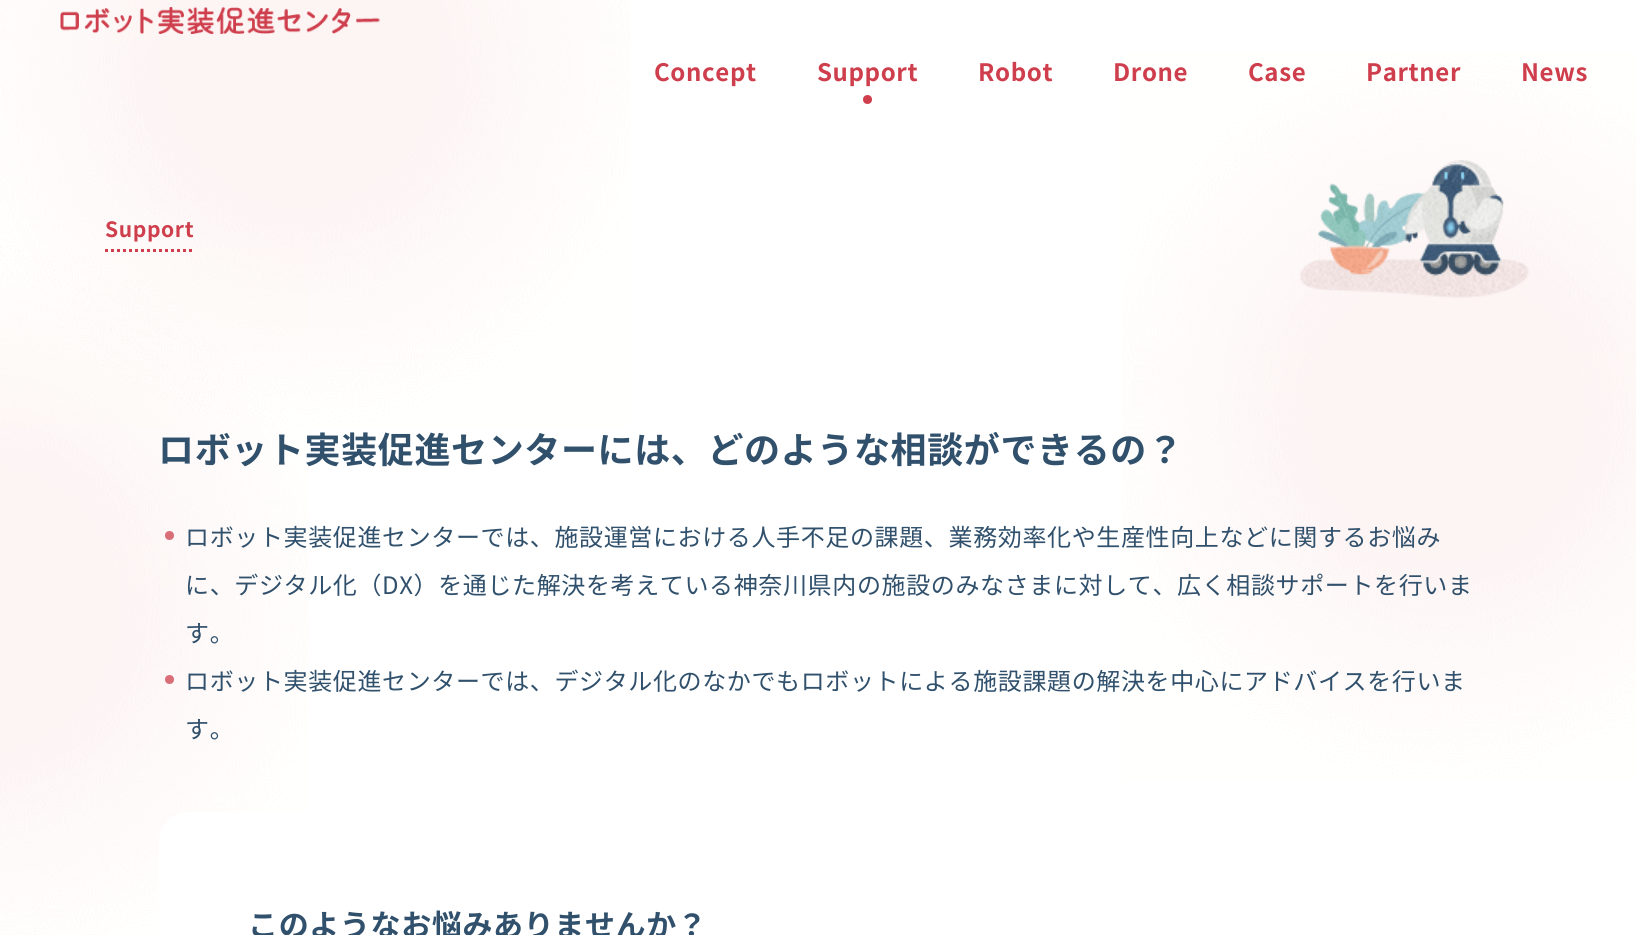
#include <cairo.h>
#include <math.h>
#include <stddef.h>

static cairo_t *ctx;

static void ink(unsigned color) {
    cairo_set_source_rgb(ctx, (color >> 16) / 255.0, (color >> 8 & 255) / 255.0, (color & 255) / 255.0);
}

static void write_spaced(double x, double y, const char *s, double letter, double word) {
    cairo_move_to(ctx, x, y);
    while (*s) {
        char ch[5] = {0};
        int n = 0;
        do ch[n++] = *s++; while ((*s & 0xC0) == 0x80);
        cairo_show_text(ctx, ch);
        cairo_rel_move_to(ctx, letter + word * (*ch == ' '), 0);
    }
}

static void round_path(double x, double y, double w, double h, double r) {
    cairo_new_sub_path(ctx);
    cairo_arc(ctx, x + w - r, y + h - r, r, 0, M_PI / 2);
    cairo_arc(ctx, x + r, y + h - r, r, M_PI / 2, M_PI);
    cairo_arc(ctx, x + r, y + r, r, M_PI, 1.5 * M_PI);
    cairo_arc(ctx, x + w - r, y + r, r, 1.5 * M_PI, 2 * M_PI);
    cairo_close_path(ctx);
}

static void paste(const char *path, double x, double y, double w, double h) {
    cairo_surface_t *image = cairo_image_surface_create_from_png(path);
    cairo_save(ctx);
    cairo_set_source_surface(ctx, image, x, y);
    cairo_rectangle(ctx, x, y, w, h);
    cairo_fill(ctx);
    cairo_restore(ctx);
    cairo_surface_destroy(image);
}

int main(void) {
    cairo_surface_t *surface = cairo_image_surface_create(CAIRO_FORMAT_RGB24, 1636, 935);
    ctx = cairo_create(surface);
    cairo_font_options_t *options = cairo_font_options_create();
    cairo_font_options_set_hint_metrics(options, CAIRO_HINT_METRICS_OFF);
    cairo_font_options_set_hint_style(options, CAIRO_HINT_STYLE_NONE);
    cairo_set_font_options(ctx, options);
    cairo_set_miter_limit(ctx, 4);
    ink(0xffffff);
    cairo_paint(ctx);
    paste("pic1.png", 0, 0, 630, 427);
    paste("pic2.png", 1122, 53, 514, 727);
    paste("pic3.png", 0, 246, 309, 689);
    paste("pic4.png", 60, 7, 320, 27);
    cairo_select_font_face(ctx, "Noto Sans JP", CAIRO_FONT_SLANT_NORMAL, CAIRO_FONT_WEIGHT_BOLD);
    cairo_set_font_size(ctx, 24);
    ink(0xce3e4c);
    write_spaced(654, 81, "Concept", 0.63, 0);
    write_spaced(817, 81, "Support", 0.63, 0);
    cairo_new_path(ctx);
    cairo_arc(ctx, 867.5, 99.5, 4.5, 0, 2 * M_PI);
    cairo_fill(ctx);
    write_spaced(978, 81, "Robot", 0.63, 0);
    write_spaced(1113, 81, "Drone", 0.63, 0);
    write_spaced(1248, 81, "Case", 0.63, 0);
    write_spaced(1366, 81, "Partner", 0.63, 0);
    write_spaced(1521, 81, "News", 0.63, 0);
    cairo_new_path(ctx);
    cairo_move_to(ctx, 105, 250.5);
    cairo_line_to(ctx, 193.5, 250.5);
    cairo_set_line_width(ctx, 3);
    cairo_set_dash(ctx, (double[]){3, 3}, 2, 0);
    cairo_stroke(ctx);
    cairo_set_font_size(ctx, 21);
    write_spaced(105, 237, "Support", 0.63, 0);
    paste("pic5.png", 1300, 160, 229, 138);
    cairo_set_font_size(ctx, 36);
    ink(0x30506c);
    write_spaced(158, 463, "ロボット実装促進センターには、どのような相談ができるの？", 0.63, 0);
    ink(0xda6e78);
    cairo_new_path(ctx);
    cairo_arc(ctx, 169.5, 535.5, 4.5, 0, 2 * M_PI);
    cairo_fill(ctx);
    cairo_select_font_face(ctx, "Noto Sans JP", CAIRO_FONT_SLANT_NORMAL, CAIRO_FONT_WEIGHT_NORMAL);
    cairo_set_font_size(ctx, 24);
    ink(0x30506c);
    write_spaced(185, 546, "ロボット実装促進センターでは、施設運営における人手不足の課題、業務効率化や生産性向上などに関するお悩み", 0.63, 0);
    write_spaced(185, 594, "に、デジタル化（DX）を通じた解決を考えている神奈川県内の施設のみなさまに対して、広く相談サポートを行いま", 0.63, 0);
    write_spaced(185, 642, "す。", 0.63, 0);
    ink(0xda6e78);
    cairo_new_path(ctx);
    cairo_arc(ctx, 169.5, 679.5, 4.5, 0, 2 * M_PI);
    cairo_fill(ctx);
    ink(0x30506c);
    write_spaced(185, 690, "ロボット実装促進センターでは、デジタル化のなかでもロボットによる施設課題の解決を中心にアドバイスを行いま", 0.63, 0);
    write_spaced(185, 738, "す。", 0.63, 0);
    ink(0xffffff);
    round_path(159, 812, 1320, 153, 30);
    cairo_fill(ctx);
    cairo_select_font_face(ctx, "Noto Sans JP", CAIRO_FONT_SLANT_NORMAL, CAIRO_FONT_WEIGHT_BOLD);
    cairo_set_font_size(ctx, 30);
    ink(0x30506c);
    write_spaced(248, 936, "このようなお悩みありませんか？", 0.63, 0);
    cairo_surface_write_to_png(surface, "screenshot.png");
    cairo_font_options_destroy(options);
    cairo_destroy(ctx);
    cairo_surface_destroy(surface);
    return 0;
}
